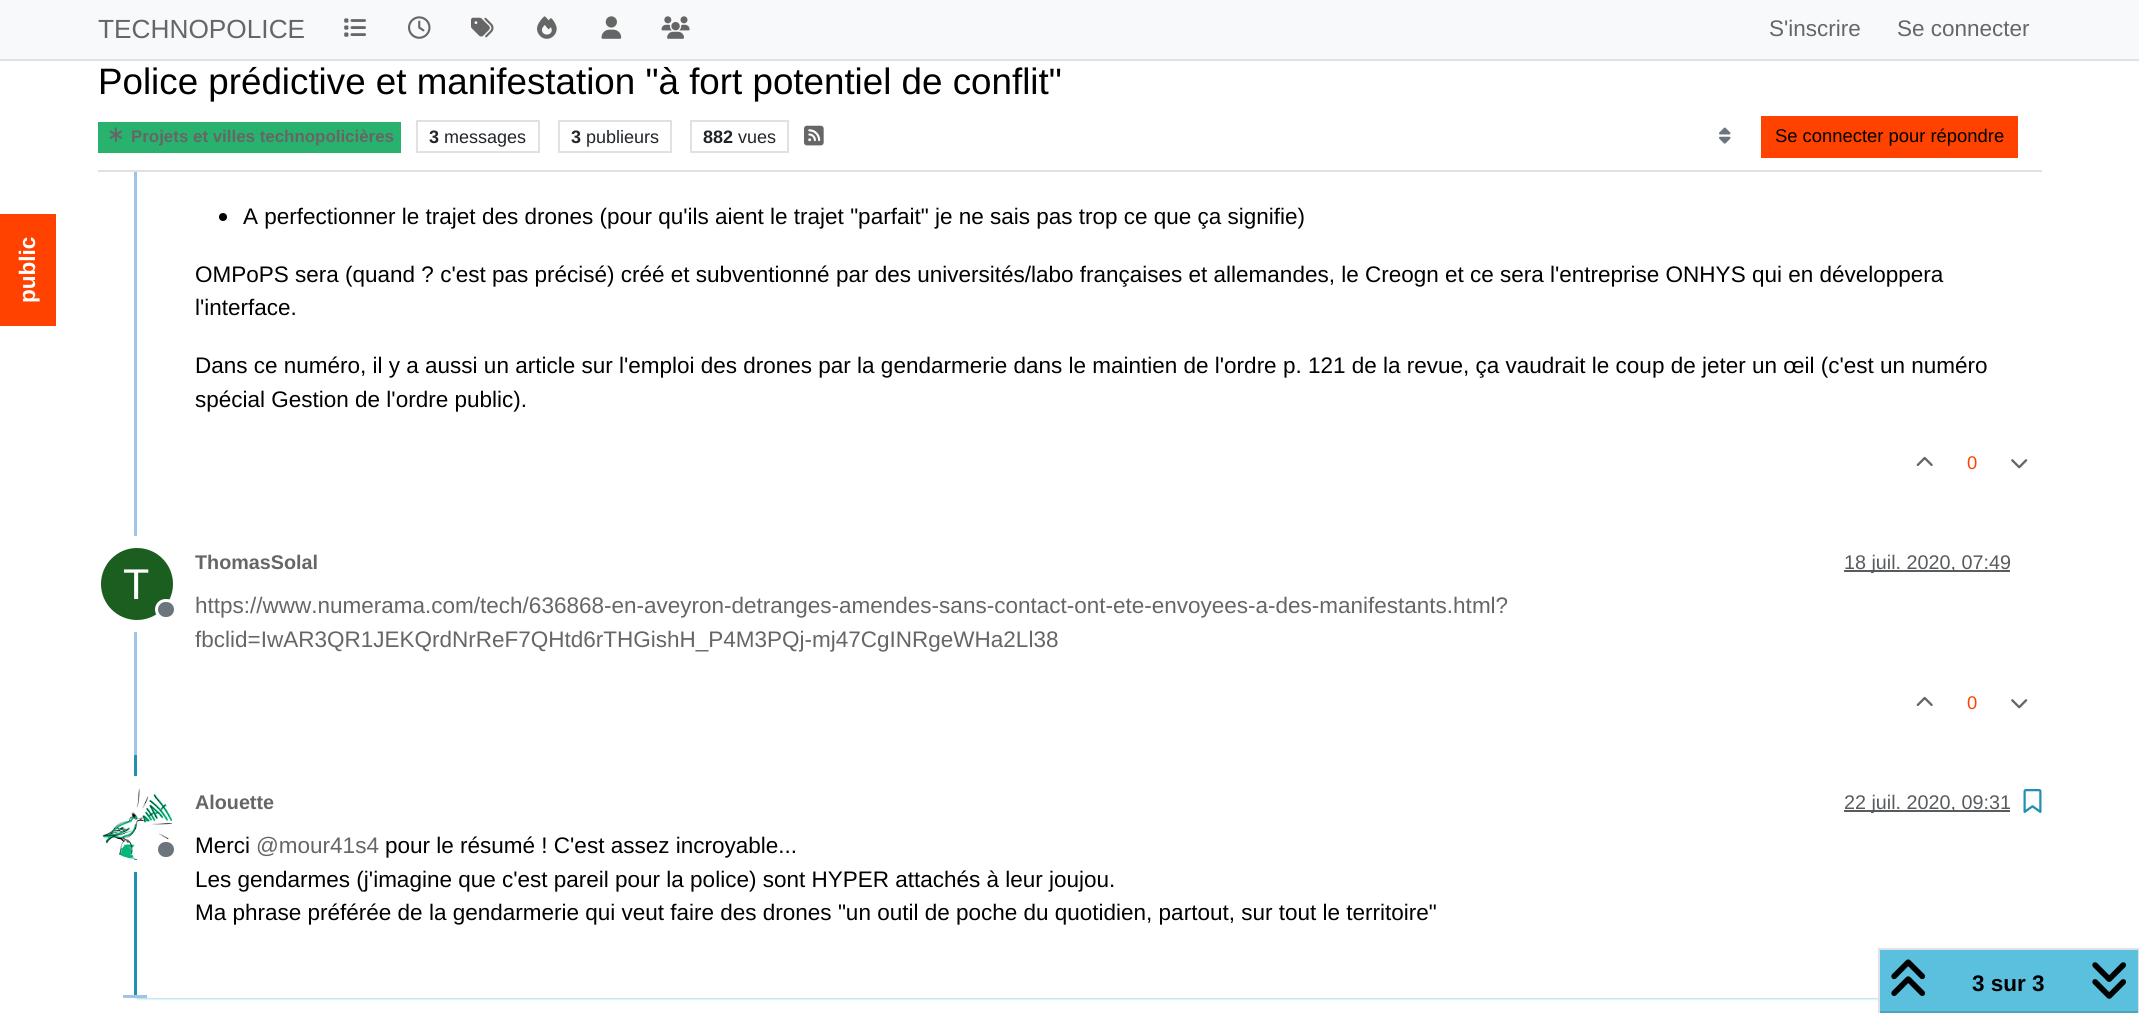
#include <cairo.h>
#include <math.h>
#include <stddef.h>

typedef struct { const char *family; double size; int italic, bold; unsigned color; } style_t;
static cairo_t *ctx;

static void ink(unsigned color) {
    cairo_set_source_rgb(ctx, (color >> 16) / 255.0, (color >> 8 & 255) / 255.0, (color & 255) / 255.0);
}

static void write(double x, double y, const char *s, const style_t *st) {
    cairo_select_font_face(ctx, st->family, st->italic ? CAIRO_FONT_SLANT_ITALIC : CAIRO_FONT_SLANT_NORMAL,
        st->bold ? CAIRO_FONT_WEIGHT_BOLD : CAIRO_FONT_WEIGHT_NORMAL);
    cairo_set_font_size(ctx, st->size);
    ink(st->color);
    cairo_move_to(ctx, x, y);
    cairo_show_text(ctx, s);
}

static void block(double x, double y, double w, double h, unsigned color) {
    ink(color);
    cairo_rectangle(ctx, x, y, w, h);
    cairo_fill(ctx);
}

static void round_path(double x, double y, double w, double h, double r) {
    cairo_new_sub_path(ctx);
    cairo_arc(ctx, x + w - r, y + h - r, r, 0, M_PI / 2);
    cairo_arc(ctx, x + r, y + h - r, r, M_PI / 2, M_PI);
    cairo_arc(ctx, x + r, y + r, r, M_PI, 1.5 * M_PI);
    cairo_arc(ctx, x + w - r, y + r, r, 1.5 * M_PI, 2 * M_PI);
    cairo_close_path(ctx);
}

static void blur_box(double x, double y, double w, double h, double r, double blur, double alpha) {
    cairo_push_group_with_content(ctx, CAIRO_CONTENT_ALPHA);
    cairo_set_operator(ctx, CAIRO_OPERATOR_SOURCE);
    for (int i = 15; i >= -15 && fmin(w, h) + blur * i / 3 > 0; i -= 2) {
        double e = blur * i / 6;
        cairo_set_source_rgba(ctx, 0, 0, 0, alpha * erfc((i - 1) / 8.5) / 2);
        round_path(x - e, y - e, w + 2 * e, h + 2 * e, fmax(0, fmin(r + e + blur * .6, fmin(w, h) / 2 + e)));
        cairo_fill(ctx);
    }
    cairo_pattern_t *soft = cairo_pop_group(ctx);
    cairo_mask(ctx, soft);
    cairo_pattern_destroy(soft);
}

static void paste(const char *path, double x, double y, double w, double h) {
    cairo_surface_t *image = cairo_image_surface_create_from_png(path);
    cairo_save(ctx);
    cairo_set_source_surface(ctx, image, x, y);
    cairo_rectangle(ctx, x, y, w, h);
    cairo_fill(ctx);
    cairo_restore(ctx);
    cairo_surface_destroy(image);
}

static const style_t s1 = {"Liberation Sans", 22.5, 0, 1, 0xffffff};
static const style_t s2 = {"Liberation Sans", 26.25, 0, 0, 0x666666};
static const style_t s3 = {"Liberation Sans", 22.5, 0, 0, 0x666666};
static const style_t s4 = {"Liberation Sans", 36.75, 0, 0, 0x000000};
static const style_t s5 = {"Liberation Sans", 16.9, 0, 1, 0x666666};
static const style_t s6 = {"Liberation Sans", 18, 0, 1, 0x212529};
static const style_t s7 = {"Liberation Sans", 18, 0, 0, 0x212529};
static const style_t s8 = {"Liberation Sans", 18.4, 0, 0, 0x000000};
static const style_t s9 = {"Liberation Sans", 22.5, 0, 0, 0x000000};
static const style_t s10 = {"Liberation Sans", 18.4, 0, 0, 0xff4200};
static const style_t s11 = {"Liberation Sans", 19.75, 0, 1, 0x666666};
static const style_t s12 = {"Liberation Sans", 19.75, 0, 0, 0x585b5e};
static const style_t s13 = {"Liberation Sans", 43, 0, 0, 0xffffff};
static const style_t s14 = {"Liberation Sans", 22.5, 0, 1, 0x000000};

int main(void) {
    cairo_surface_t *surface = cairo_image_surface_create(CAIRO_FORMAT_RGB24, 2139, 1013);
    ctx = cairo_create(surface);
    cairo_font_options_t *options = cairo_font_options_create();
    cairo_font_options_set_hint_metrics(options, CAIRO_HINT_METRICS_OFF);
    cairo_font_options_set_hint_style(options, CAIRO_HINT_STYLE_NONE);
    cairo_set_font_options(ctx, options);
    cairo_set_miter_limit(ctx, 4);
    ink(0xffffff);
    cairo_paint(ctx);
    block(0, 214, 56, 112, 0xff4200);
    cairo_save(ctx);
    cairo_translate(ctx, 35, 303);
    cairo_rotate(ctx, -90 * M_PI / 180);
    write(0, 0, "public", &s1);
    cairo_restore(ctx);
    block(0, 0, 2139, 59, 0xf8f9fa);
    block(0, 59, 2139, 2, 0xdee2e6);
    write(98, 38, "TECHNOPOLICE", &s2);
    paste("pic1.png", 344, 18, 22, 19);
    paste("pic2.png", 408, 16, 23, 23);
    paste("pic3.png", 471, 17, 23, 21);
    paste("pic4.png", 537, 16, 20, 23);
    paste("pic5.png", 601, 16, 21, 23);
    paste("pic6.png", 661, 16, 29, 23);
    write(1769, 36, "S'inscrire", &s3);
    write(1897, 36, "Se connecter", &s3);
    block(98, 170, 1944, 2, 0xdee2e6);
    write(98, 94, "Police prédictive et manifestation \"à fort potentiel de conflit\"", &s4);
    block(98, 122, 303, 31, 0x29b26e);
    paste("pic7.png", 109, 127, 14, 15);
    write(131, 142, "Projets et villes technopolicières", &s5);
    cairo_rectangle(ctx, 417, 121, 122, 31);
    ink(0xdee2e6);
    cairo_stroke(ctx);
    write(429, 143, "3", &s6);
    write(444, 143, "messages", &s7);
    cairo_rectangle(ctx, 559, 121, 112, 31);
    ink(0xdee2e6);
    cairo_stroke(ctx);
    write(571, 143, "3", &s6);
    write(586, 143, "publieurs", &s7);
    cairo_rectangle(ctx, 691, 121, 97, 31);
    ink(0xdee2e6);
    cairo_stroke(ctx);
    write(703, 143, "882", &s6);
    write(738, 143, "vues", &s7);
    paste("pic8.png", 804, 125, 20, 21);
    paste("pic9.png", 1719, 127, 12, 17);
    block(1761, 116, 257, 42, 0xff4200);
    write(1775, 142, "Se connecter pour répondre", &s8);
    block(134, 172, 3, 583, 0xa0c4e4);
    ink(0x000000);
    cairo_new_path(ctx);
    cairo_arc(ctx, 223, 217, 4, 0, 2 * M_PI);
    cairo_fill(ctx);
    write(243, 224, "A perfectionner le trajet des drones (pour qu'ils aient le trajet \"parfait\" je ne sais pas trop ce que ça signifie)", &s9);
    write(195, 282, "OMPoPS sera (quand ? c'est pas précisé) créé et subventionné par des universités/labo françaises et allemandes, le Creogn et ce sera l'entreprise ONHYS qui en développera", &s9);
    write(195, 315, "l'interface.", &s9);
    write(195, 373, "Dans ce numéro, il y a aussi un article sur l'emploi des drones par la gendarmerie dans le maintien de l'ordre p. 121 de la revue, ça vaudrait le coup de jeter un œil (c'est un numéro", &s9);
    write(195, 407, "spécial Gestion de l'ordre public).", &s9);
    paste("pic10.png", 1916, 456, 17, 10);
    write(1967, 469, "0", &s10);
    paste("pic11.png", 2011, 459, 17, 10);
    write(195, 569, "ThomasSolal", &s11);
    block(1844, 570, 166, 2, 0x595c5f);
    write(1844, 569, "18 juil. 2020, 07:49", &s12);
    cairo_new_path(ctx);
    cairo_arc(ctx, 137, 584, 42, 0, 2 * M_PI);
    ink(0xffffff);
    cairo_set_line_width(ctx, 12);
    cairo_stroke(ctx);
    ink(0x1b5e20);
    cairo_arc(ctx, 137, 584, 36, 0, 2 * M_PI);
    cairo_fill(ctx);
    write(123, 599, "T", &s13);
    ink(0x6c757d);
    round_path(156.5, 600.5, 19, 18, 9);
    cairo_fill_preserve(ctx);
    ink(0xffffff);
    cairo_set_line_width(ctx, 3);
    cairo_stroke(ctx);
    write(195, 613, "https://www.numerama.com/tech/636868-en-aveyron-detranges-amendes-sans-contact-ont-ete-envoyees-a-des-manifestants.html?", &s3);
    write(195, 647, "fbclid=IwAR3QR1JEKQrdNrReF7QHtd6rTHGishH_P4M3PQj-mj47CgINRgeWHa2Ll38", &s3);
    paste("pic10.png", 1916, 696, 17, 10);
    write(1967, 709, "0", &s10);
    paste("pic11.png", 2011, 699, 17, 10);
    cairo_save(ctx);
    cairo_set_fill_rule(ctx, CAIRO_FILL_RULE_EVEN_ODD);
    cairo_new_path(ctx);
    cairo_move_to(ctx, 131, 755);
    cairo_line_to(ctx, 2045, 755);
    cairo_line_to(ctx, 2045, 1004);
    cairo_line_to(ctx, 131, 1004);
    cairo_close_path(ctx);
    cairo_move_to(ctx, 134, 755);
    cairo_line_to(ctx, 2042, 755);
    cairo_line_to(ctx, 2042, 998);
    cairo_line_to(ctx, 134, 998);
    cairo_close_path(ctx);
    cairo_clip(ctx);
    ink(0x5bc0de);
    blur_box(137, 761, 1902, 237, 0, 1.5, 1);
    cairo_restore(ctx);
    block(134, 755, 3, 243, 0x2390b0);
    cairo_arc(ctx, 137, 824, 42, 0, 2 * M_PI);
    ink(0xffffff);
    cairo_set_line_width(ctx, 12);
    cairo_stroke(ctx);
    paste("pic12.png", 102, 788, 71, 71);
    ink(0x6c757d);
    round_path(156.5, 840.5, 19, 18, 9);
    cairo_fill_preserve(ctx);
    ink(0xffffff);
    cairo_set_line_width(ctx, 3);
    cairo_stroke(ctx);
    write(195, 809, "Alouette", &s11);
    block(1844, 810, 166, 2, 0x595c5f);
    write(1844, 809, "22 juil. 2020, 09:31", &s12);
    paste("pic13.png", 2023, 789, 19, 24);
    write(195, 853, "Merci", &s9);
    write(256, 853, "@mour41s4", &s3);
    write(385, 853, "pour le résumé ! C'est assez incroyable...", &s9);
    write(195, 887, "Les gendarmes (j'imagine que c'est pareil pour la police) sont HYPER attachés à leur joujou.", &s9);
    write(195, 920, "Ma phrase préférée de la gendarmerie qui veut faire des drones \"un outil de poche du quotidien, partout, sur tout le territoire\"", &s9);
    block(123, 995, 24, 3, 0xa0c4e4);
    cairo_rectangle(ctx, 1879, 949, 259, 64);
    ink(0xdee2e6);
    cairo_set_line_width(ctx, 2);
    cairo_stroke(ctx);
    block(1880, 950, 258, 61, 0x5bc0de);
    block(1880, 1011, 258, 2, 0x4da3bd);
    paste("pic14.png", 1891, 959, 34, 37);
    write(1972, 991, "3 sur 3", &s14);
    paste("pic15.png", 2092, 962, 34, 37);
    cairo_surface_write_to_png(surface, "screenshot.png");
    cairo_font_options_destroy(options);
    cairo_destroy(ctx);
    cairo_surface_destroy(surface);
    return 0;
}
